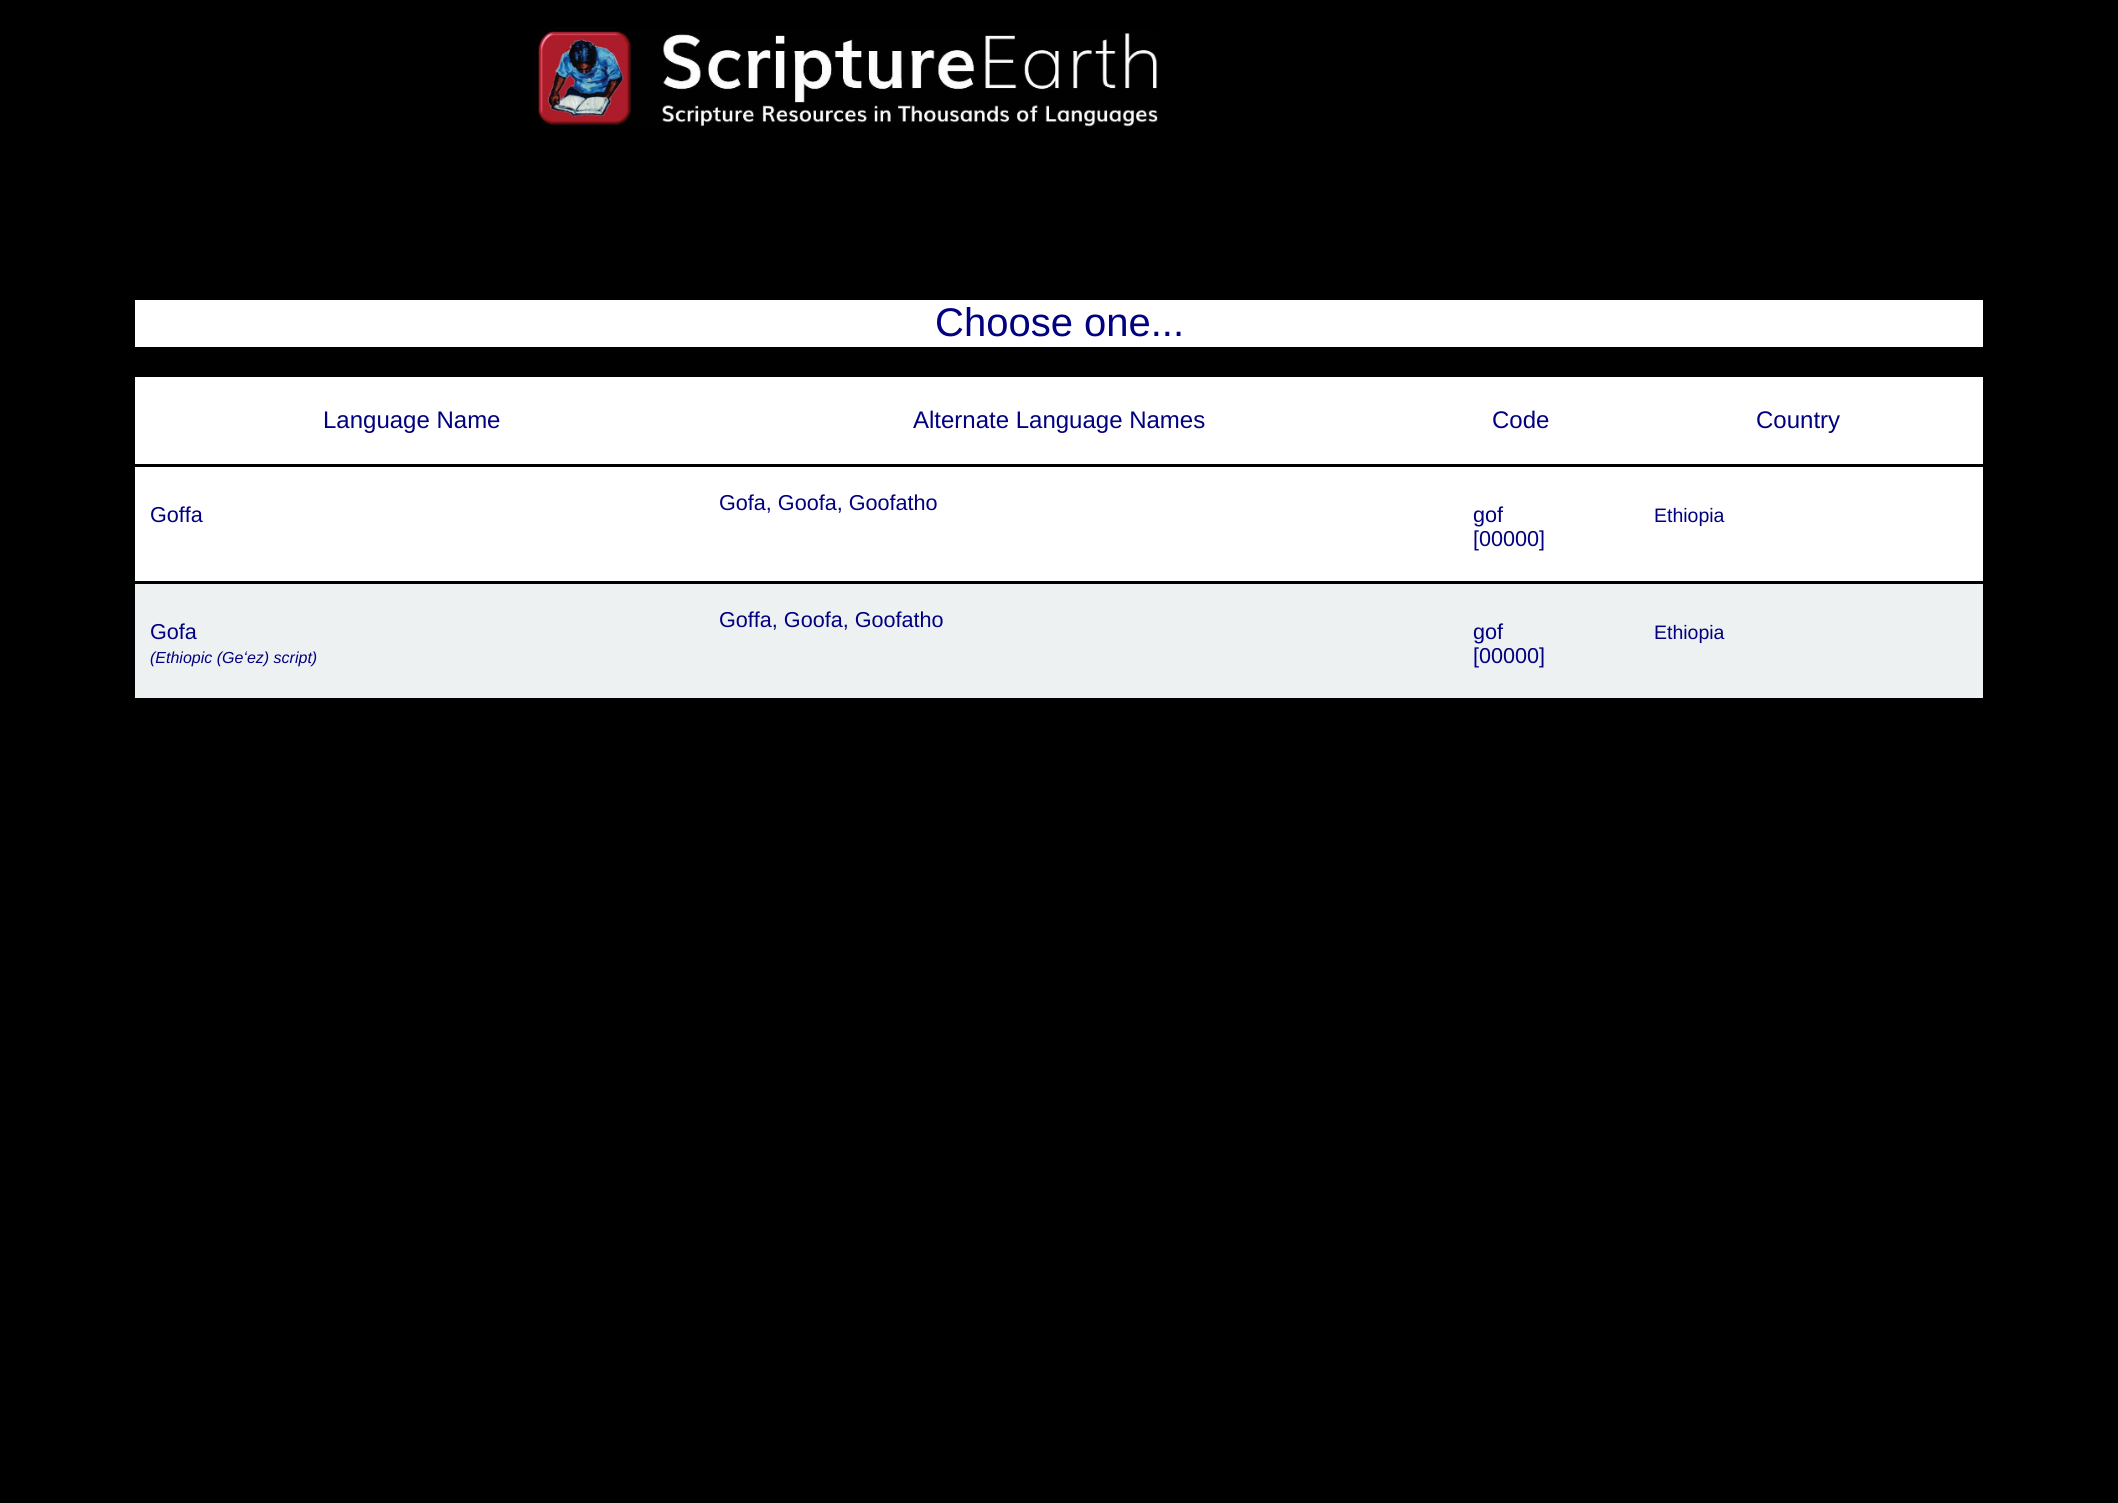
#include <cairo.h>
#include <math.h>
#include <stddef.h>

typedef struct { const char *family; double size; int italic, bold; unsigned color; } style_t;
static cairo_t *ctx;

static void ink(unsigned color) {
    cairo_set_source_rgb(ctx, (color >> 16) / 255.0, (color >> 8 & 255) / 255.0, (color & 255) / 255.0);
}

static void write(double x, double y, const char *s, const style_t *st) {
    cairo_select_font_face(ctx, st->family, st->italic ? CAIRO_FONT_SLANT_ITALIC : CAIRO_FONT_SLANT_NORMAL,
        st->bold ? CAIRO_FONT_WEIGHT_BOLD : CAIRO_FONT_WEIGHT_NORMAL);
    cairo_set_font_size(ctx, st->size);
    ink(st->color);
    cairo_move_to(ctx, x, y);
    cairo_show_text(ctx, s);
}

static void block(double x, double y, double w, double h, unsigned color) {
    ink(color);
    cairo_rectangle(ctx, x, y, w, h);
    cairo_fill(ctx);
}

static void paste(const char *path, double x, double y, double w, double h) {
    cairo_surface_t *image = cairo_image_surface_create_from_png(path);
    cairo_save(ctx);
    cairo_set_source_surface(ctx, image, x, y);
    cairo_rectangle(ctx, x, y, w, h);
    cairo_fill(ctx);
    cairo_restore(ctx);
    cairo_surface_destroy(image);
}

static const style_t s1 = {"Liberation Sans", 40, 0, 0, 0x000080};
static const style_t s2 = {"Liberation Sans", 24, 0, 0, 0x000080};
static const style_t s3 = {"Liberation Sans", 21.6, 0, 0, 0x000080};
static const style_t s4 = {"Liberation Sans", 19.5, 0, 0, 0x000080};
static const style_t s5 = {"Liberation Sans", 16, 1, 0, 0x000080};

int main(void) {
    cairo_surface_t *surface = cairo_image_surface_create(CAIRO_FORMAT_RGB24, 2118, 1503);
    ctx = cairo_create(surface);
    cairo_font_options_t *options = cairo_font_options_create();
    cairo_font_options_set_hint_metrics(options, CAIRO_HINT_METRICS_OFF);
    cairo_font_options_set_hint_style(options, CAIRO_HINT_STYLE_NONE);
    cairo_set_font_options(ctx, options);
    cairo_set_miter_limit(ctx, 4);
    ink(0x000000);
    cairo_paint(ctx);
    paste("pic1.png", 535, 27, 624, 101);
    block(135, 300, 1848, 47, 0xffffff);
    write(935, 336, "Choose one...", &s1);
    block(135, 377, 1848, 87, 0xffffff);
    write(323, 428, "Language Name", &s2);
    write(913, 428, "Alternate Language Names", &s2);
    write(1492, 428, "Code", &s2);
    write(1756, 428, "Country", &s2);
    block(135, 467, 1848, 114, 0xffffff);
    write(150, 522, "Goffa", &s3);
    write(719, 510, "Gofa, Goofa, Goofatho", &s3);
    write(1473, 522, "gof", &s3);
    write(1473, 546, "[00000]", &s3);
    write(1654, 522, "Ethiopia", &s4);
    block(135, 584, 1848, 114, 0xeef1f2);
    write(719, 627, "Goffa, Goofa, Goofatho", &s3);
    write(150, 639, "Gofa", &s3);
    write(150, 663, "(Ethiopic (Geʻez) script)", &s5);
    write(1473, 639, "gof", &s3);
    write(1473, 663, "[00000]", &s3);
    write(1654, 639, "Ethiopia", &s4);
    cairo_surface_write_to_png(surface, "screenshot.png");
    cairo_font_options_destroy(options);
    cairo_destroy(ctx);
    cairo_surface_destroy(surface);
    return 0;
}
